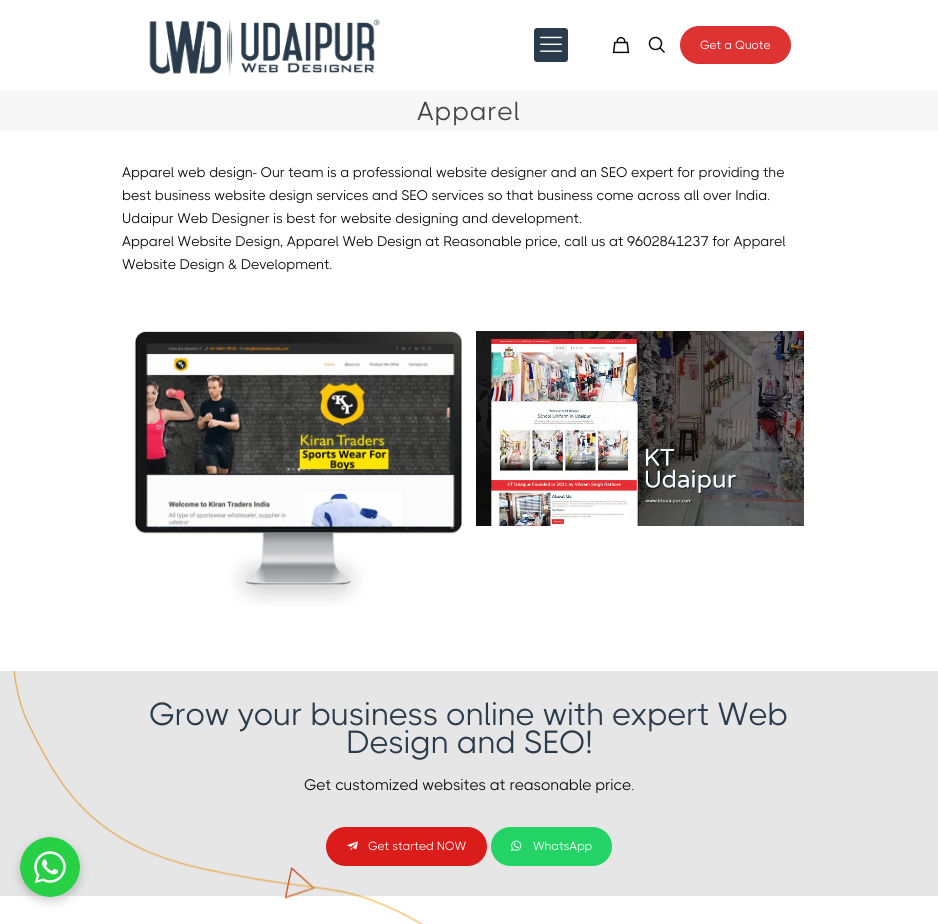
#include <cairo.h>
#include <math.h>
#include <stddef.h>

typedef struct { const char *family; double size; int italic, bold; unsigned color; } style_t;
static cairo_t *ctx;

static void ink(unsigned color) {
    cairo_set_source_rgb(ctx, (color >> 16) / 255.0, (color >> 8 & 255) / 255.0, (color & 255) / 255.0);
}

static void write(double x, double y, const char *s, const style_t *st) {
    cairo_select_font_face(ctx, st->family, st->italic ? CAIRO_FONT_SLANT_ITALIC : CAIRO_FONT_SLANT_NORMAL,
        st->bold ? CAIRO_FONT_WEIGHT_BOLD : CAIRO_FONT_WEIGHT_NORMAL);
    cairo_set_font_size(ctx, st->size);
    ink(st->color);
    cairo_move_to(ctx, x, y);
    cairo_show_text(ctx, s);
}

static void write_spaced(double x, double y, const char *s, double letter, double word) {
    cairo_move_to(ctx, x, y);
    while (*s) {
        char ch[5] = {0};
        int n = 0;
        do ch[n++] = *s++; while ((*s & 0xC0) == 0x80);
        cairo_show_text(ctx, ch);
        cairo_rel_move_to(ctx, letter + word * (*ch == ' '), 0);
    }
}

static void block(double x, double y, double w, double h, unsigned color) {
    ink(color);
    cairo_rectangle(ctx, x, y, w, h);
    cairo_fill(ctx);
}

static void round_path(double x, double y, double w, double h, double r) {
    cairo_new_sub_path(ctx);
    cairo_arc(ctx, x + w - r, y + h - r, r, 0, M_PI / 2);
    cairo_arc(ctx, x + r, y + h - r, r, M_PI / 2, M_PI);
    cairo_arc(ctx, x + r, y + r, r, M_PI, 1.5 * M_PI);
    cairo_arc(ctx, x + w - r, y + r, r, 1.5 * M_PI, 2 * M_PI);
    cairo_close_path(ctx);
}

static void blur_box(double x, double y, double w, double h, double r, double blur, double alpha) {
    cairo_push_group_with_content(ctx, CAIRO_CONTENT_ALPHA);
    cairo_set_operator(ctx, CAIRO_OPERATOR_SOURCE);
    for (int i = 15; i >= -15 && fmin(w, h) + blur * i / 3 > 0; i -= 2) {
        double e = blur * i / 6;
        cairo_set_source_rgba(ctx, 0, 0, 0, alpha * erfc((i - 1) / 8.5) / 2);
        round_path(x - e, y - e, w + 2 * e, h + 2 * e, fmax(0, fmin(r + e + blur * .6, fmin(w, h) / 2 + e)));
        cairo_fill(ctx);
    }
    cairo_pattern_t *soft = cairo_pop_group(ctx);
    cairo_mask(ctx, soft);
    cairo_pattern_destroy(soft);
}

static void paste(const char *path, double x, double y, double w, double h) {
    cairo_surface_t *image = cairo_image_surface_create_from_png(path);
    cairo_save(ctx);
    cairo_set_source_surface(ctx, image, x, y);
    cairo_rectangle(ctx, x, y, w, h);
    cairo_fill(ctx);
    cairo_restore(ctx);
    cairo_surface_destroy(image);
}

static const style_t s1 = {"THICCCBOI", 12, 0, 0, 0xffffff};
static const style_t s2 = {"THICCCBOI", 14, 0, 0, 0x0a0a0a};
static const style_t s3 = {"THICCCBOI", 32, 0, 0, 0x2a3b4c};
static const style_t s4 = {"THICCCBOI", 15.4, 0, 0, 0x0a0a0a};

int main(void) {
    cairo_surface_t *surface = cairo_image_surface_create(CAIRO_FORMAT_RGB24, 938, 924);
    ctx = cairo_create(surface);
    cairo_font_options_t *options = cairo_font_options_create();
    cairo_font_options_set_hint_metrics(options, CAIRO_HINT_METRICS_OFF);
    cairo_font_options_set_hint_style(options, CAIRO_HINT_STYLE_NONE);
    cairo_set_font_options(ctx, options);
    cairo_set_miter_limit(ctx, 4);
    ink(0xffffff);
    cairo_paint(ctx);
    paste("pic1.png", 149, 19, 231, 56);
    ink(0x2a3b4c);
    round_path(534, 28, 34, 34, 3);
    cairo_fill(ctx);
    paste("pic2.png", 540, 36, 22, 16);
    paste("pic3.png", 612, 36, 18, 18);
    cairo_arc(ctx, 655.5, 43.5, 6, 0, 2 * M_PI);
    ink(0x0a0a0a);
    cairo_set_line_width(ctx, 1.5);
    cairo_stroke(ctx);
    cairo_new_path(ctx);
    cairo_move_to(ctx, 659.5, 47.5);
    cairo_line_to(ctx, 664.5, 52.5);
    cairo_stroke(ctx);
    ink(0xdd3333);
    round_path(680, 26, 111, 38, 19);
    cairo_fill(ctx);
    write(700, 49, "Get a Quote", &s1);
    block(0, 91, 938, 40, 0xf7f7f7);
    cairo_set_font_size(ctx, 26);
    ink(0x444444);
    write_spaced(417, 120, "Apparel", 1, 0);
    write(122, 177, "Apparel web design- Our team is a professional website designer and an SEO expert for providing the", &s2);
    write(122, 200, "best business website design services and SEO services so that business come across all over India.", &s2);
    write(122, 223, "Udaipur Web Designer is best for website designing and development.", &s2);
    write(122, 246, "Apparel Website Design, Apparel Web Design at Reasonable price, call us at 9602841237 for Apparel", &s2);
    write(122, 269, "Website Design & Development.", &s2);
    paste("pic4.png", 135, 331, 327, 275);
    paste("pic5.png", 476, 331, 328, 195);
    paste("pic6.png", 13, 671, 411, 253);
    cairo_set_source_rgba(ctx, 0, 0, 0, 0.1);
    cairo_rectangle(ctx, 0, 671, 938, 225);
    cairo_fill(ctx);
    write(149, 725, "Grow your business online with expert Web", &s3);
    write(346, 753, "Design and SEO!", &s3);
    write(304, 790, "Get customized websites at reasonable price.", &s4);
    ink(0xda1c1b);
    round_path(326, 827, 161, 39, 19.5);
    cairo_fill(ctx);
    paste("pic7.png", 347, 841, 11, 10);
    write(368, 850, "Get started NOW", &s1);
    ink(0x23d366);
    round_path(491, 827, 121, 39, 19.5);
    cairo_fill(ctx);
    paste("pic8.png", 511, 840, 11, 11);
    write(533, 850, "WhatsApp", &s1);
    ink(0x000000);
    blur_box(20, 841, 60, 60, 30, 5, 0.2);
    paste("pic9.png", 20, 837, 60, 60);
    cairo_surface_write_to_png(surface, "screenshot.png");
    cairo_font_options_destroy(options);
    cairo_destroy(ctx);
    cairo_surface_destroy(surface);
    return 0;
}
